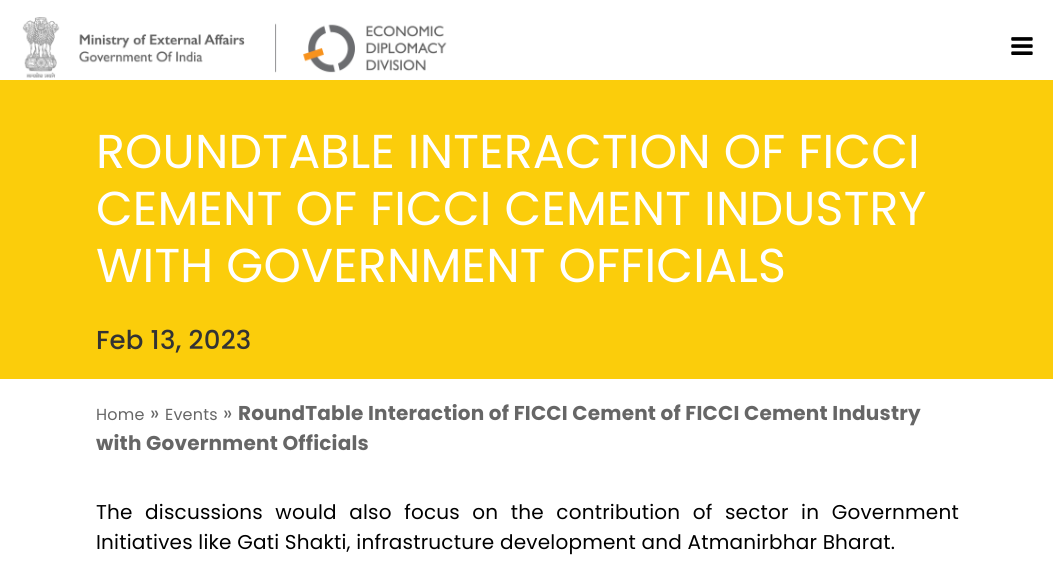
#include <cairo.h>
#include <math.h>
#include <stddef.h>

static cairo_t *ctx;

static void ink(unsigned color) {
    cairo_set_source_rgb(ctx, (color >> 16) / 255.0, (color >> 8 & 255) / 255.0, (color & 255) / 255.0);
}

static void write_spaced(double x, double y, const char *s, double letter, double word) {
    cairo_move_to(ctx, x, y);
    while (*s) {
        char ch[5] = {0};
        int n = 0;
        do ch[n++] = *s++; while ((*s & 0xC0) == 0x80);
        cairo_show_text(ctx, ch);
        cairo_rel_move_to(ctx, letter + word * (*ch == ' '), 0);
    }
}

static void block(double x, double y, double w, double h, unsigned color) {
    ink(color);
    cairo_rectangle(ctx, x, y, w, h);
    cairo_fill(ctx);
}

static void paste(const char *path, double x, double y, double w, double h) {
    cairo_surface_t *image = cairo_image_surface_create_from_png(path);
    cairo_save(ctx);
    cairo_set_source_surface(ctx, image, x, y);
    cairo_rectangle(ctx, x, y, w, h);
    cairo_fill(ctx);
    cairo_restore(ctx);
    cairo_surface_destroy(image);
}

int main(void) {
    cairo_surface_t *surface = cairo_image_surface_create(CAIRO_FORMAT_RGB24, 1053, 588);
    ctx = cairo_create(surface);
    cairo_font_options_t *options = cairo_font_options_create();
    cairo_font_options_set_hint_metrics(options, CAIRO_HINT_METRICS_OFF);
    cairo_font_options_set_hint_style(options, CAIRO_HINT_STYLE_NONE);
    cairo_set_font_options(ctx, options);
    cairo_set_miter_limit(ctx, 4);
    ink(0xffffff);
    cairo_paint(ctx);
    paste("pic1.png", 22, 17, 425, 61);
    paste("pic2.png", 1011, 37, 22, 18);
    block(0, 80, 1053, 299, 0xfbcd0b);
    cairo_select_font_face(ctx, "Poppins", CAIRO_FONT_SLANT_NORMAL, CAIRO_FONT_WEIGHT_NORMAL);
    cairo_set_font_size(ctx, 47.5);
    ink(0xffffff);
    write_spaced(96, 168, "ROUNDTABLE INTERACTION OF FICCI", 0.2, 0);
    write_spaced(96, 225, "CEMENT OF FICCI CEMENT INDUSTRY", 0.2, 0);
    write_spaced(96, 282, "WITH GOVERNMENT OFFICIALS", 0.2, 0);
    cairo_select_font_face(ctx, "Poppins Medium", CAIRO_FONT_SLANT_NORMAL, CAIRO_FONT_WEIGHT_NORMAL);
    cairo_set_font_size(ctx, 26);
    ink(0x333333);
    write_spaced(96, 349, "Feb 13, 2023", 0.2, 0);
    cairo_select_font_face(ctx, "Poppins", CAIRO_FONT_SLANT_NORMAL, CAIRO_FONT_WEIGHT_NORMAL);
    cairo_set_font_size(ctx, 16);
    ink(0x666666);
    write_spaced(96, 420, "Home", 0.2, 0);
    cairo_set_font_size(ctx, 20);
    write_spaced(150, 420, "»", 0.2, 0);
    cairo_set_font_size(ctx, 16);
    write_spaced(165, 420, "Events", 0.2, 0);
    cairo_set_font_size(ctx, 20);
    write_spaced(223, 420, "»", 0.2, 0);
    cairo_select_font_face(ctx, "Poppins", CAIRO_FONT_SLANT_NORMAL, CAIRO_FONT_WEIGHT_BOLD);
    write_spaced(238, 420, "RoundTable Interaction of FICCI Cement of FICCI Cement Industry", 0.2, 0);
    write_spaced(96, 450, "with Government Officials", 0.2, 0);
    cairo_select_font_face(ctx, "Poppins", CAIRO_FONT_SLANT_NORMAL, CAIRO_FONT_WEIGHT_NORMAL);
    ink(0x000000);
    write_spaced(96, 519, "The discussions would also focus on the contribution of sector in Government", 0.2, 6.9);
    write_spaced(96, 549, "Initiatives like Gati Shakti, infrastructure development and Atmanirbhar Bharat.", 0.2, 0);
    cairo_surface_write_to_png(surface, "screenshot.png");
    cairo_font_options_destroy(options);
    cairo_destroy(ctx);
    cairo_surface_destroy(surface);
    return 0;
}
